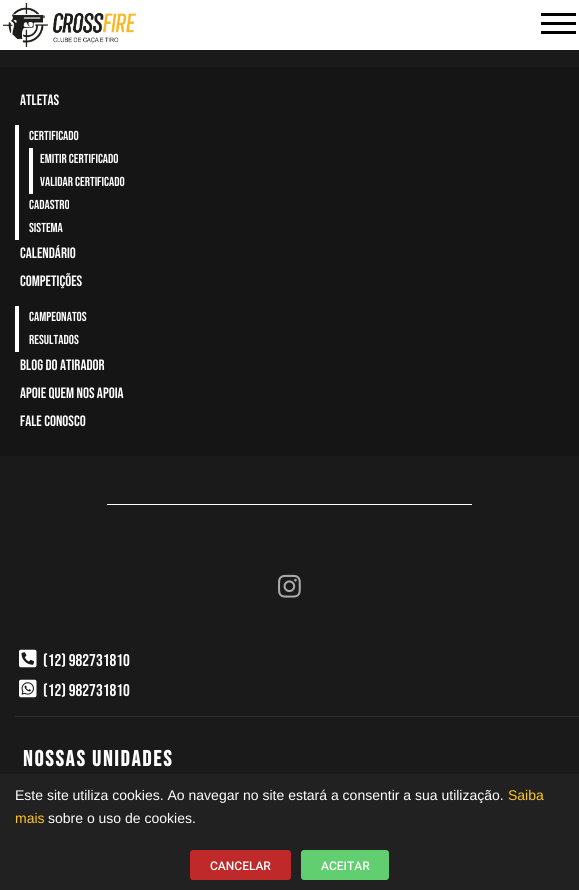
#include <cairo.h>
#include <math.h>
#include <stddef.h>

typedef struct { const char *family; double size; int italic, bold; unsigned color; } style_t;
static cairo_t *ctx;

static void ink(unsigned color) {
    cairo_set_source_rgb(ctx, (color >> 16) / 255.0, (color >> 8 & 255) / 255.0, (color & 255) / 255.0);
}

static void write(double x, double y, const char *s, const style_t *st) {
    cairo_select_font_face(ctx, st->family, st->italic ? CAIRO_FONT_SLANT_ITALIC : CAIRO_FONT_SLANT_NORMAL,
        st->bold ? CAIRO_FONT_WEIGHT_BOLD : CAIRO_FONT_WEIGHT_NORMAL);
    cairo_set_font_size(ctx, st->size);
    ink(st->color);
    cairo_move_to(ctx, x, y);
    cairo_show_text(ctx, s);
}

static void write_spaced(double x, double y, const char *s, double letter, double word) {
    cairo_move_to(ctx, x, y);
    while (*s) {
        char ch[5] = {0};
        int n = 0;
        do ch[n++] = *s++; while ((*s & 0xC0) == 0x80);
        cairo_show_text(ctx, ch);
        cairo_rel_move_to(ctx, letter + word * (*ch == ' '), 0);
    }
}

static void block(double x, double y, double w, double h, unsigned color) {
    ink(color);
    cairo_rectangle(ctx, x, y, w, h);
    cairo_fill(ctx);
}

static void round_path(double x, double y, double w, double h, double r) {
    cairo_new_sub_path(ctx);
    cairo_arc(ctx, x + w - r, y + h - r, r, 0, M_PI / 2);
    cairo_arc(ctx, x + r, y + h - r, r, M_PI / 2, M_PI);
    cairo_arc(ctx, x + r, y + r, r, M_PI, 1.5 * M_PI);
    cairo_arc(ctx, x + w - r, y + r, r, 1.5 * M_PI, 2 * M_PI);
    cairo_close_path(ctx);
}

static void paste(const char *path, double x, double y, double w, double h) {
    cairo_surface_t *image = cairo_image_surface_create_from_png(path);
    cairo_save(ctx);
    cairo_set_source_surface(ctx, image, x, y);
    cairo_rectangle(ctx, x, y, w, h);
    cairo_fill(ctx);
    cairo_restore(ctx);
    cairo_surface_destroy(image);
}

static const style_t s1 = {"Bebas Neue", 15, 0, 0, 0xffffff};
static const style_t s2 = {"Bebas Neue", 13, 0, 0, 0xffffff};
static const style_t s3 = {"Bebas Neue", 17, 0, 0, 0xffffff};
static const style_t s4 = {"Liberation Sans", 14, 0, 0, 0xffffff};
static const style_t s5 = {"Liberation Sans", 14, 0, 0, 0xfec726};
static const style_t s6 = {"Roboto Medium", 12, 0, 0, 0xffffff};

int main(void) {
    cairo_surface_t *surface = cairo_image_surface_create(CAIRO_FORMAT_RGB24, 579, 890);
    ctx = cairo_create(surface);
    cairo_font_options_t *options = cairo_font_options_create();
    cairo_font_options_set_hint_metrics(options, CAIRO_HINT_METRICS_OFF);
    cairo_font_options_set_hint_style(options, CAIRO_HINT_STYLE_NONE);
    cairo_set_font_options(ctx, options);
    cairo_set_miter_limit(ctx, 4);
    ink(0x1a1a1a);
    cairo_paint(ctx);
    block(0, 0, 579, 50, 0xffffff);
    paste("pic1.png", 3, 3, 133, 44);
    block(541, 22, 35, 3, 0x000000);
    block(541, 13, 35, 3, 0x000000);
    block(541, 31, 35, 3, 0x000000);
    block(0, 67, 579, 389, 0x151515);
    write(20, 105, "ATLETAS", &s1);
    block(15, 125, 4, 115, 0xffffff);
    write(29, 140, "Certificado", &s2);
    block(29, 148, 4, 46, 0xffffff);
    write(40, 163, "Emitir Certificado", &s2);
    write(40, 186, "Validar Certificado", &s2);
    write(29, 209, "Cadastro", &s2);
    write(29, 232, "Sistema", &s2);
    write(20, 258, "CALENDÁRIO", &s1);
    write(20, 286, "COMPETIÇÕES", &s1);
    block(15, 306, 4, 46, 0xffffff);
    write(29, 321, "Campeonatos", &s2);
    write(29, 344, "Resultados", &s2);
    write(20, 370, "BLOG DO ATIRADOR", &s1);
    write(20, 398, "APOIE QUEM NOS APOIA", &s1);
    write(20, 426, "FALE CONOSCO", &s1);
    block(107, 504, 365, 1, 0xffffff);
    paste("pic2.png", 278, 574, 23, 24);
    block(15, 716, 564, 1, 0x2f2f2f);
    paste("pic3.png", 19, 649, 18, 19);
    write(43, 666, "(12) 982731810", &s3);
    paste("pic4.png", 19, 679, 18, 19);
    write(43, 696, "(12) 982731810", &s3);
    cairo_select_font_face(ctx, "Bebas Neue", CAIRO_FONT_SLANT_NORMAL, CAIRO_FONT_WEIGHT_BOLD);
    cairo_set_font_size(ctx, 22);
    write_spaced(23, 766, "NOSSAS UNIDADES", 2, 0);
    block(0, 774, 579, 116, 0x212121);
    write(15, 800, "Este site utiliza cookies. Ao navegar no site estará a consentir a sua utilização.", &s4);
    write(508, 800, "Saiba", &s5);
    write(15, 823, "mais", &s5);
    write(48, 823, "sobre o uso de cookies.", &s4);
    ink(0xbf2929);
    round_path(190, 850, 101, 30, 3);
    cairo_fill(ctx);
    write(210, 870, "CANCELAR", &s6);
    ink(0x61ce70);
    round_path(301, 850, 88, 30, 3);
    cairo_fill(ctx);
    write(321, 870, "ACEITAR", &s6);
    cairo_surface_write_to_png(surface, "screenshot.png");
    cairo_font_options_destroy(options);
    cairo_destroy(ctx);
    cairo_surface_destroy(surface);
    return 0;
}
